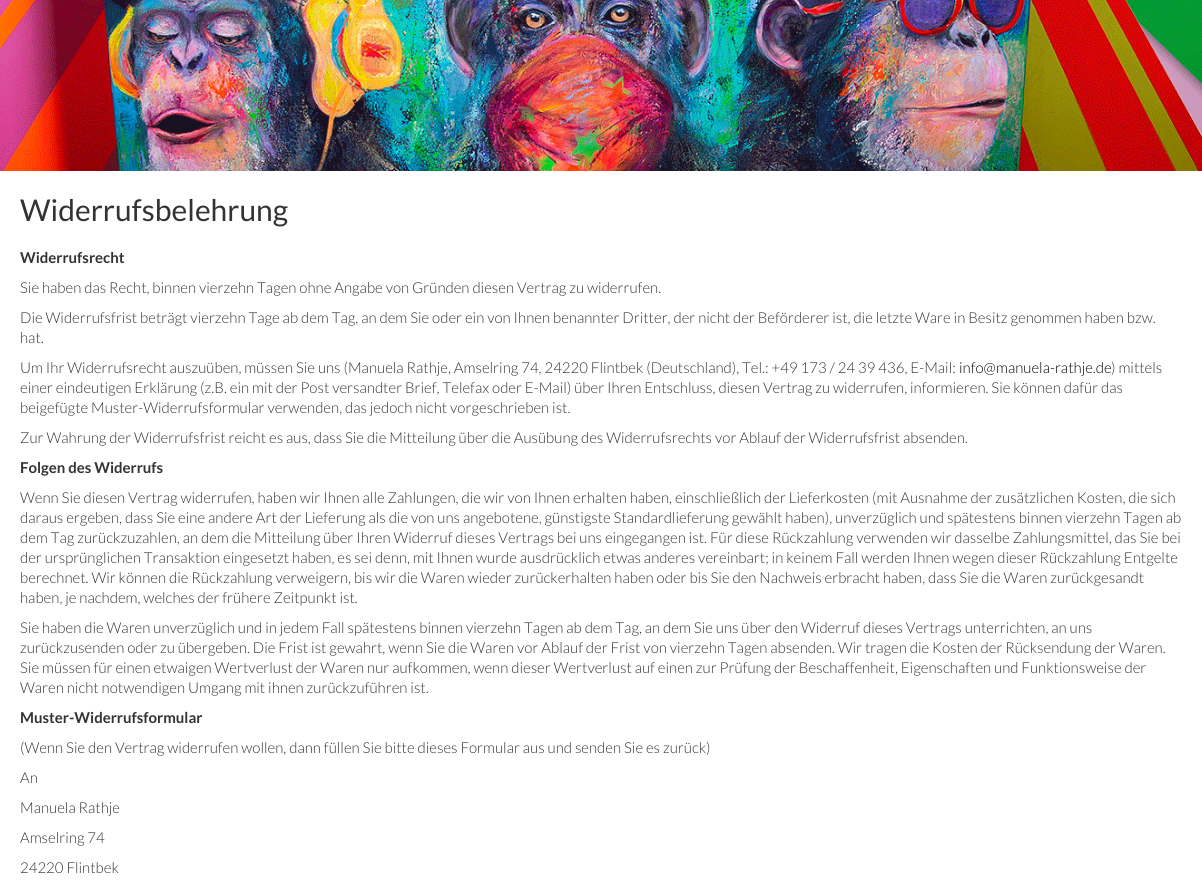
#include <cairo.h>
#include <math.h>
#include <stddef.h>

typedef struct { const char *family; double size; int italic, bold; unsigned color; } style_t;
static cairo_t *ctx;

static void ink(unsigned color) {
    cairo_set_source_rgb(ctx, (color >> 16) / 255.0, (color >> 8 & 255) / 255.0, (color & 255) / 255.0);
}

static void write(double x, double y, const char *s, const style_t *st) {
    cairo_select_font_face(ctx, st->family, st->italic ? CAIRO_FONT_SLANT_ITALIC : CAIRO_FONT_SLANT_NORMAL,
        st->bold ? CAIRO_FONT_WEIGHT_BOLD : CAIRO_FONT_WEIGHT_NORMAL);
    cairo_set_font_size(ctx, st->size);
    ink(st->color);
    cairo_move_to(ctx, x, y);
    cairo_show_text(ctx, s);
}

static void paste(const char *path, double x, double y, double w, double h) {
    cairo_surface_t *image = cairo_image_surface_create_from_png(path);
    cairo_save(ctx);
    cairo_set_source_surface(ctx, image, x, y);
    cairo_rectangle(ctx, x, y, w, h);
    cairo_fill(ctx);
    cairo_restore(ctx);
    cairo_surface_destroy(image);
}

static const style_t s1 = {"Lato", 30, 0, 0, 0x333333};
static const style_t s2 = {"Lato", 15, 0, 1, 0x333333};
static const style_t s3 = {"Lato Light", 15, 0, 0, 0x333333};
static const style_t s4 = {"Lato Light", 15, 0, 0, 0x000000};

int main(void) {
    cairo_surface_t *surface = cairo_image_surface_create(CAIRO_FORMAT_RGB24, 1202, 887);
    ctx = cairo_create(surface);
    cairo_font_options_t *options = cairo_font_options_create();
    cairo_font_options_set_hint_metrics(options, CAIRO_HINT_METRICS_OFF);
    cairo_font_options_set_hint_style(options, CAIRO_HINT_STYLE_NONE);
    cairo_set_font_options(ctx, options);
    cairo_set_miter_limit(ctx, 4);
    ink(0xffffff);
    cairo_paint(ctx);
    paste("pic1.png", 0, 0, 1202, 171);
    write(20, 221, "Widerrufsbelehrung", &s1);
    write(20, 263, "Widerrufsrecht", &s2);
    write(20, 293, "Sie haben das Recht, binnen vierzehn Tagen ohne Angabe von Gründen diesen Vertrag zu widerrufen.", &s3);
    write(20, 323, "Die Widerrufsfrist beträgt vierzehn Tage ab dem Tag, an dem Sie oder ein von Ihnen benannter Dritter, der nicht der Beförderer ist, die letzte Ware in Besitz genommen haben bzw.", &s3);
    write(20, 343, "hat.", &s3);
    write(20, 373, "Um Ihr Widerrufsrecht auszuüben, müssen Sie uns (Manuela Rathje, Amselring 74, 24220 Flintbek (Deutschland), Tel.: +49 173 / 24 39 436, E-Mail:", &s3);
    write(959, 373, "info@manuela-rathje.de", &s4);
    write(1111, 373, ") mittels", &s3);
    write(20, 393, "einer eindeutigen Erklärung (z.B. ein mit der Post versandter Brief, Telefax oder E-Mail) über Ihren Entschluss, diesen Vertrag zu widerrufen, informieren. Sie können dafür das", &s3);
    write(20, 413, "beigefügte Muster-Widerrufsformular verwenden, das jedoch nicht vorgeschrieben ist.", &s3);
    write(20, 443, "Zur Wahrung der Widerrufsfrist reicht es aus, dass Sie die Mitteilung über die Ausübung des Widerrufsrechts vor Ablauf der Widerrufsfrist absenden.", &s3);
    write(20, 473, "Folgen des Widerrufs", &s2);
    write(20, 503, "Wenn Sie diesen Vertrag widerrufen, haben wir Ihnen alle Zahlungen, die wir von Ihnen erhalten haben, einschließlich der Lieferkosten (mit Ausnahme der zusätzlichen Kosten, die sich", &s3);
    write(20, 523, "daraus ergeben, dass Sie eine andere Art der Lieferung als die von uns angebotene, günstigste Standardlieferung gewählt haben), unverzüglich und spätestens binnen vierzehn Tagen ab", &s3);
    write(20, 543, "dem Tag zurückzuzahlen, an dem die Mitteilung über Ihren Widerruf dieses Vertrags bei uns eingegangen ist. Für diese Rückzahlung verwenden wir dasselbe Zahlungsmittel, das Sie bei", &s3);
    write(20, 563, "der ursprünglichen Transaktion eingesetzt haben, es sei denn, mit Ihnen wurde ausdrücklich etwas anderes vereinbart; in keinem Fall werden Ihnen wegen dieser Rückzahlung Entgelte", &s3);
    write(20, 583, "berechnet. Wir können die Rückzahlung verweigern, bis wir die Waren wieder zurückerhalten haben oder bis Sie den Nachweis erbracht haben, dass Sie die Waren zurückgesandt", &s3);
    write(20, 603, "haben, je nachdem, welches der frühere Zeitpunkt ist.", &s3);
    write(20, 633, "Sie haben die Waren unverzüglich und in jedem Fall spätestens binnen vierzehn Tagen ab dem Tag, an dem Sie uns über den Widerruf dieses Vertrags unterrichten, an uns", &s3);
    write(20, 653, "zurückzusenden oder zu übergeben. Die Frist ist gewahrt, wenn Sie die Waren vor Ablauf der Frist von vierzehn Tagen absenden. Wir tragen die Kosten der Rücksendung der Waren.", &s3);
    write(20, 673, "Sie müssen für einen etwaigen Wertverlust der Waren nur aufkommen, wenn dieser Wertverlust auf einen zur Prüfung der Beschaffenheit, Eigenschaften und Funktionsweise der", &s3);
    write(20, 693, "Waren nicht notwendigen Umgang mit ihnen zurückzuführen ist.", &s3);
    write(20, 723, "Muster-Widerrufsformular", &s2);
    write(20, 753, "(Wenn Sie den Vertrag widerrufen wollen, dann füllen Sie bitte dieses Formular aus und senden Sie es zurück)", &s3);
    write(20, 783, "An", &s3);
    write(20, 813, "Manuela Rathje", &s3);
    write(20, 843, "Amselring 74", &s3);
    write(20, 873, "24220 Flintbek", &s3);
    cairo_surface_write_to_png(surface, "screenshot.png");
    cairo_font_options_destroy(options);
    cairo_destroy(ctx);
    cairo_surface_destroy(surface);
    return 0;
}
